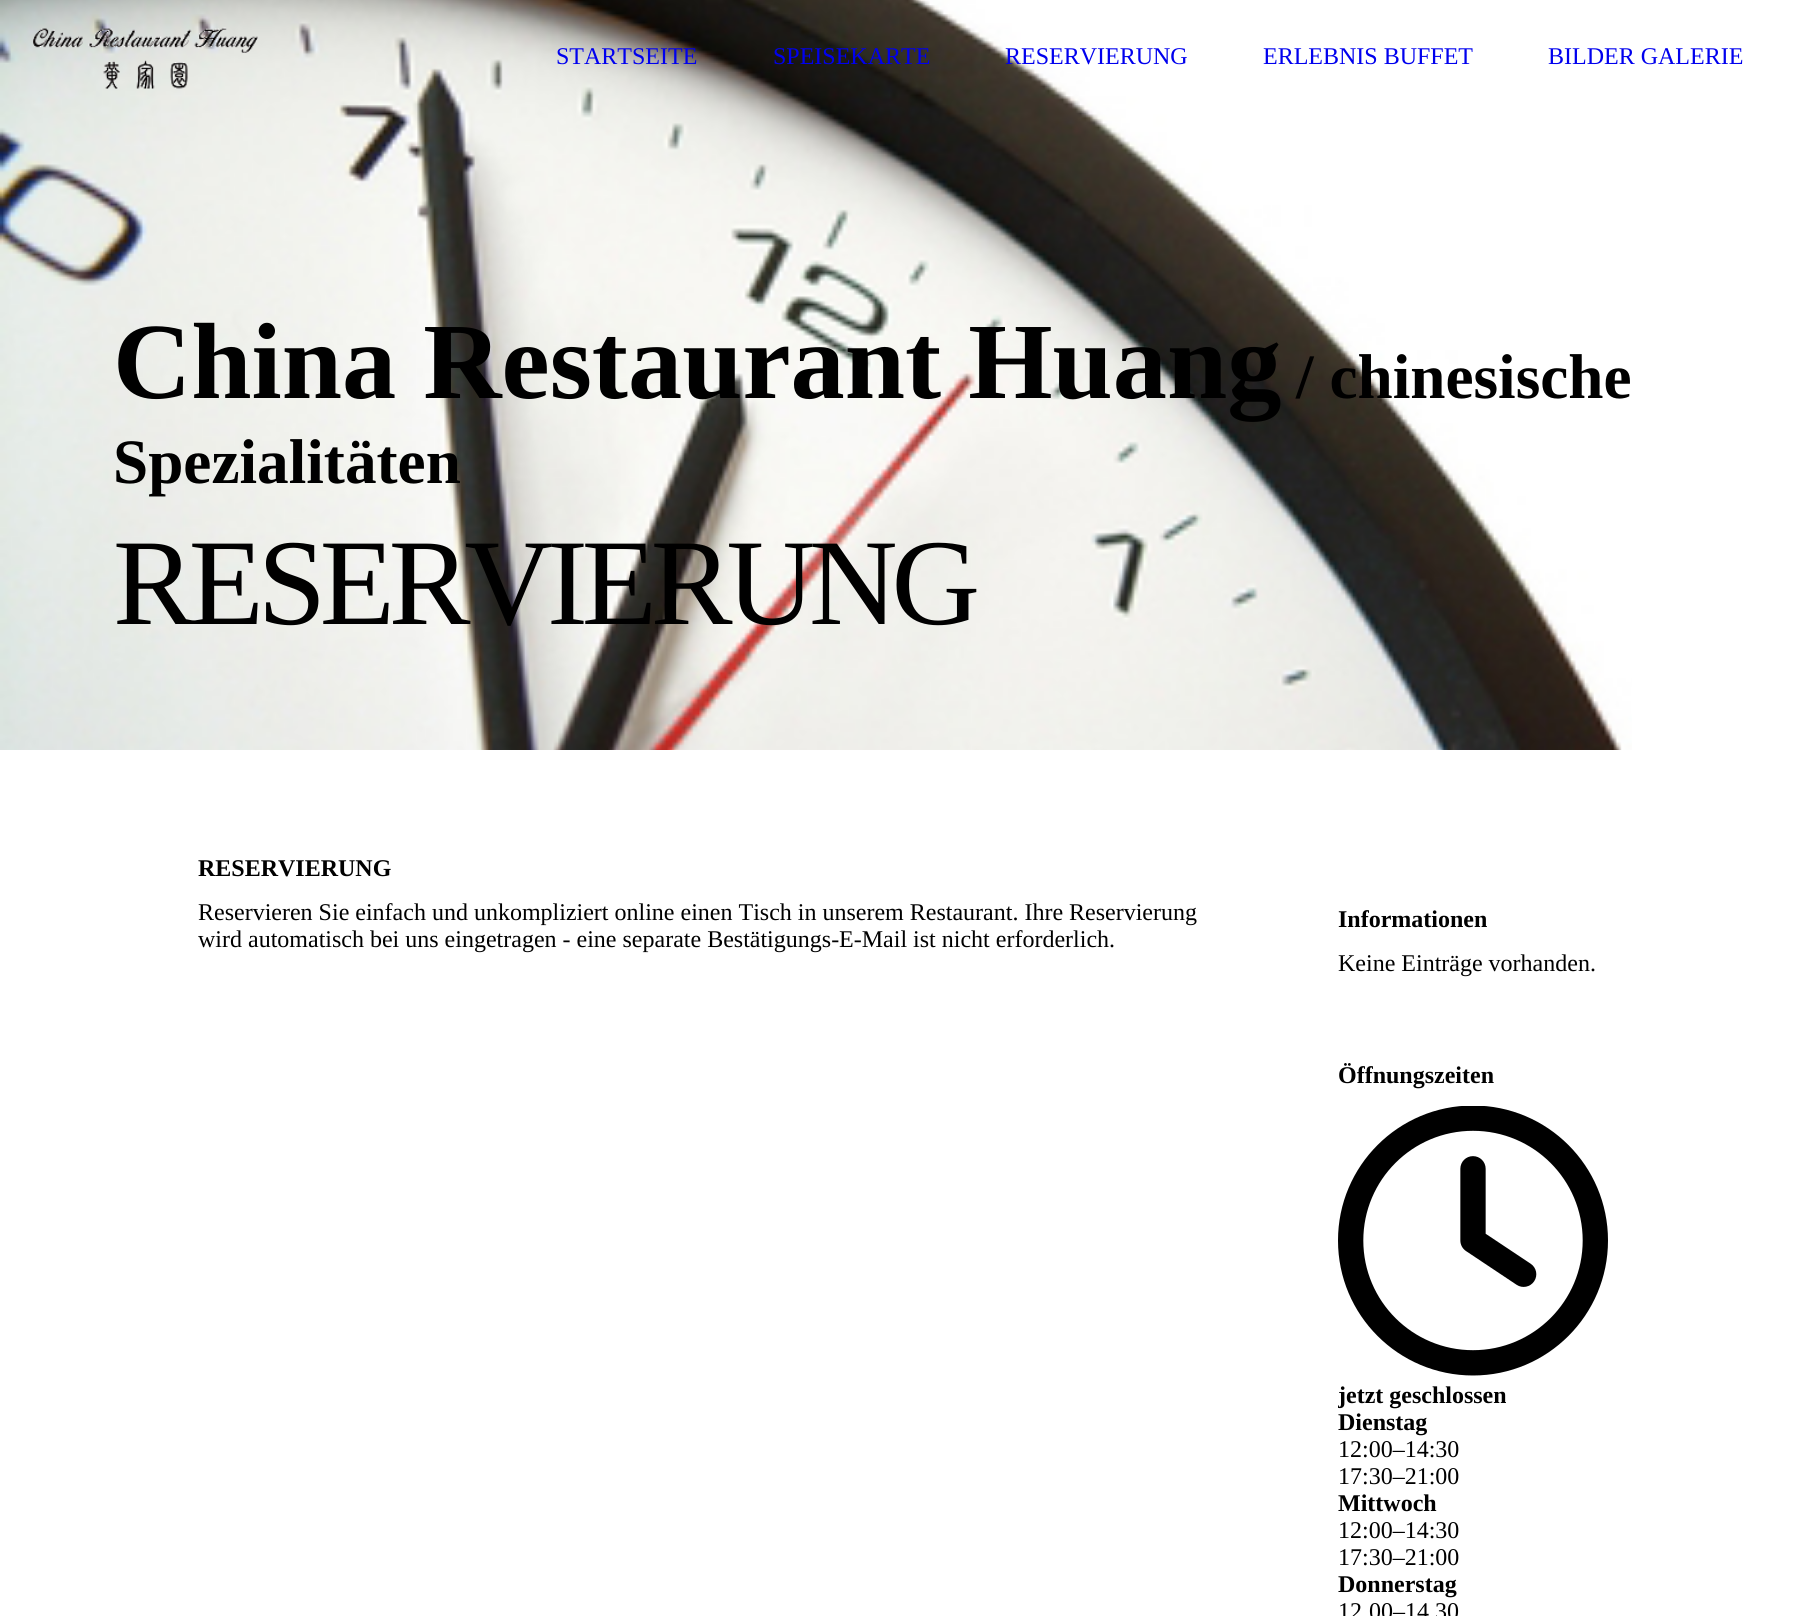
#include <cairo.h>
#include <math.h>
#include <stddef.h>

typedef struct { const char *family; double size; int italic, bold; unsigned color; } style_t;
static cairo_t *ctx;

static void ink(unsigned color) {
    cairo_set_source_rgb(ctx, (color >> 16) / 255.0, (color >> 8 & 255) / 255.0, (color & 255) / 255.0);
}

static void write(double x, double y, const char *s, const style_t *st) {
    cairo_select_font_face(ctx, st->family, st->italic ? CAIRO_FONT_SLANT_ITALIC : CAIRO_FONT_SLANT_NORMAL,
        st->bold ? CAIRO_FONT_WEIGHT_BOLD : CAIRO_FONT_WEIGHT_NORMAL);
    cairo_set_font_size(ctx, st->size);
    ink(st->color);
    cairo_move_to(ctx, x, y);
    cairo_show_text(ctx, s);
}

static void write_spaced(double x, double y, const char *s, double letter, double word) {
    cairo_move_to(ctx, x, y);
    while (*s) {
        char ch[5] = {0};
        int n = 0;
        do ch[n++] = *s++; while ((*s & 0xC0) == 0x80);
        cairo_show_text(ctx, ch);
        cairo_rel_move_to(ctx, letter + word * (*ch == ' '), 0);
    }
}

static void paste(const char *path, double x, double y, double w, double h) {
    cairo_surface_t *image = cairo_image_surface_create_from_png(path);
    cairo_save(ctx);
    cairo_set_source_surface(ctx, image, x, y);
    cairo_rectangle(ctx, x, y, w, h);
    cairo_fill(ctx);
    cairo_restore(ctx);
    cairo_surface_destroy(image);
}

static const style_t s1 = {"Liberation Serif", 24, 0, 0, 0x0000ee};
static const style_t s2 = {"Liberation Serif", 108.4, 0, 1, 0x000000};
static const style_t s3 = {"Liberation Serif", 63.25, 0, 1, 0x000000};
static const style_t s4 = {"Liberation Serif", 24, 0, 1, 0x000000};
static const style_t s5 = {"Liberation Serif", 24, 0, 0, 0x000000};

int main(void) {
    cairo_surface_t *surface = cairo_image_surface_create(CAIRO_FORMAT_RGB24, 1806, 1616);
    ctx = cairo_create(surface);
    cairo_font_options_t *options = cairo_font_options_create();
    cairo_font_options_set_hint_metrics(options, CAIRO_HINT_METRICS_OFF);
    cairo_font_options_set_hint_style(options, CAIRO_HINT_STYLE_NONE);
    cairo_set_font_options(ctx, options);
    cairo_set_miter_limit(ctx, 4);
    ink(0xffffff);
    cairo_paint(ctx);
    paste("pic2.png", 0, 0, 1632, 750);
    paste("pic1.png", 33, 27, 225, 62);
    write(556, 64, "STARTSEITE", &s1);
    write(773, 64, "SPEISEKARTE", &s1);
    write(1005, 64, "RESERVIERUNG", &s1);
    write(1263, 64, "ERLEBNIS BUFFET", &s1);
    write(1548, 64, "BILDER GALERIE", &s1);
    write(113, 398, "China Restaurant Huang", &s2);
    write(1296, 398, "/ chinesische", &s3);
    write(113, 483, "Spezialitäten", &s3);
    cairo_select_font_face(ctx, "Liberation Serif", CAIRO_FONT_SLANT_NORMAL, CAIRO_FONT_WEIGHT_NORMAL);
    cairo_set_font_size(ctx, 122.75);
    write_spaced(113, 624, "RESERVIERUNG", -6.1, 0);
    write(198, 876, "RESERVIERUNG", &s4);
    write(198, 920, "Reservieren Sie einfach und unkompliziert online einen Tisch in unserem Restaurant. Ihre Reservierung", &s5);
    write(198, 947, "wird automatisch bei uns eingetragen - eine separate Bestätigungs-E-Mail ist nicht erforderlich.", &s5);
    write(1338, 927, "Informationen", &s4);
    write(1338, 971, "Keine Einträge vorhanden.", &s5);
    write(1338, 1083, "Öffnungszeiten", &s4);
    paste("pic3.png", 1338, 1106, 270, 270);
    cairo_save(ctx);
    cairo_rectangle(ctx, 1338, 1062, 270, 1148);
    cairo_clip(ctx);
    write(1338, 1403, "jetzt geschlossen", &s4);
    cairo_restore(ctx);
    write(1338, 1430, "Dienstag", &s4);
    write(1338, 1457, "12:00–14:30", &s5);
    write(1338, 1484, "17:30–21:00", &s5);
    write(1338, 1511, "Mittwoch", &s4);
    write(1338, 1538, "12:00–14:30", &s5);
    write(1338, 1565, "17:30–21:00", &s5);
    write(1338, 1592, "Donnerstag", &s4);
    write(1338, 1619, "12", &s5);
    write(1369, 1619, "00–14", &s5);
    write(1435, 1619, "30", &s5);
    cairo_surface_write_to_png(surface, "screenshot.png");
    cairo_font_options_destroy(options);
    cairo_destroy(ctx);
    cairo_surface_destroy(surface);
    return 0;
}
